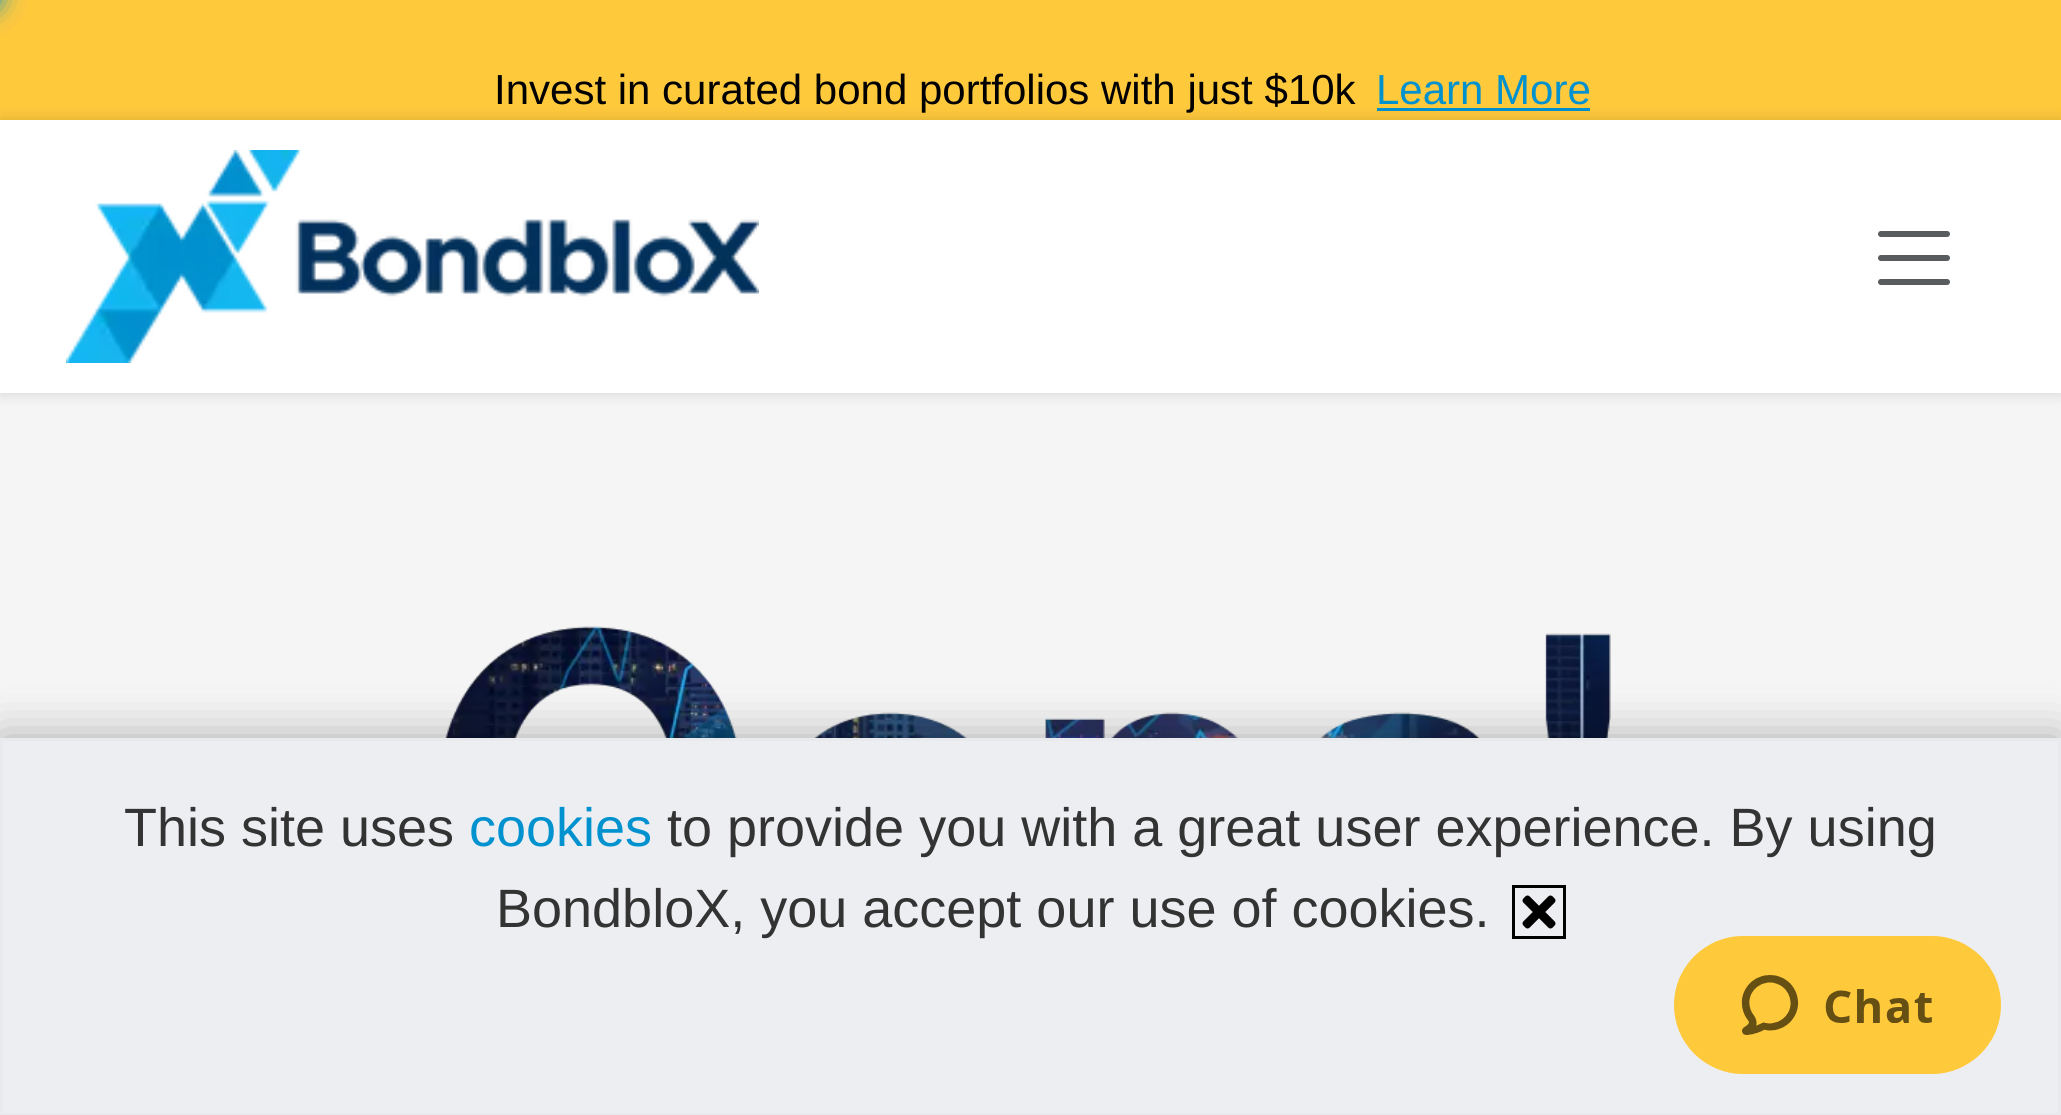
#include <cairo.h>
#include <math.h>
#include <stddef.h>

typedef struct { const char *family; double size; int italic, bold; unsigned color; } style_t;
static cairo_t *ctx;

static void ink(unsigned color) {
    cairo_set_source_rgb(ctx, (color >> 16) / 255.0, (color >> 8 & 255) / 255.0, (color & 255) / 255.0);
}

static void write(double x, double y, const char *s, const style_t *st) {
    cairo_select_font_face(ctx, st->family, st->italic ? CAIRO_FONT_SLANT_ITALIC : CAIRO_FONT_SLANT_NORMAL,
        st->bold ? CAIRO_FONT_WEIGHT_BOLD : CAIRO_FONT_WEIGHT_NORMAL);
    cairo_set_font_size(ctx, st->size);
    ink(st->color);
    cairo_move_to(ctx, x, y);
    cairo_show_text(ctx, s);
}

static void block(double x, double y, double w, double h, unsigned color) {
    ink(color);
    cairo_rectangle(ctx, x, y, w, h);
    cairo_fill(ctx);
}

static void round_path(double x, double y, double w, double h, double r) {
    cairo_new_sub_path(ctx);
    cairo_arc(ctx, x + w - r, y + h - r, r, 0, M_PI / 2);
    cairo_arc(ctx, x + r, y + h - r, r, M_PI / 2, M_PI);
    cairo_arc(ctx, x + r, y + r, r, M_PI, 1.5 * M_PI);
    cairo_arc(ctx, x + w - r, y + r, r, 1.5 * M_PI, 2 * M_PI);
    cairo_close_path(ctx);
}

static void blur_box(double x, double y, double w, double h, double r, double blur, double alpha) {
    cairo_push_group_with_content(ctx, CAIRO_CONTENT_ALPHA);
    cairo_set_operator(ctx, CAIRO_OPERATOR_SOURCE);
    for (int i = 15; i >= -15 && fmin(w, h) + blur * i / 3 > 0; i -= 2) {
        double e = blur * i / 6;
        cairo_set_source_rgba(ctx, 0, 0, 0, alpha * erfc((i - 1) / 8.5) / 2);
        round_path(x - e, y - e, w + 2 * e, h + 2 * e, fmax(0, fmin(r + e + blur * .6, fmin(w, h) / 2 + e)));
        cairo_fill(ctx);
    }
    cairo_pattern_t *soft = cairo_pop_group(ctx);
    cairo_mask(ctx, soft);
    cairo_pattern_destroy(soft);
}

static void paste(const char *path, double x, double y, double w, double h) {
    cairo_surface_t *image = cairo_image_surface_create_from_png(path);
    cairo_save(ctx);
    cairo_set_source_surface(ctx, image, x, y);
    cairo_rectangle(ctx, x, y, w, h);
    cairo_fill(ctx);
    cairo_restore(ctx);
    cairo_surface_destroy(image);
}

static const style_t s1 = {"Liberation Sans", 42, 0, 0, 0x000000};
static const style_t s2 = {"Liberation Sans", 42, 0, 0, 0x0091cf};
static const style_t s3 = {"Liberation Sans", 54, 0, 0, 0x333333};
static const style_t s4 = {"Liberation Sans", 54, 0, 0, 0x0091cf};

int main(void) {
    cairo_surface_t *surface = cairo_image_surface_create(CAIRO_FORMAT_RGB24, 2061, 1115);
    ctx = cairo_create(surface);
    cairo_font_options_t *options = cairo_font_options_create();
    cairo_font_options_set_hint_metrics(options, CAIRO_HINT_METRICS_OFF);
    cairo_font_options_set_hint_style(options, CAIRO_HINT_STYLE_NONE);
    cairo_set_font_options(ctx, options);
    cairo_set_miter_limit(ctx, 4);
    ink(0xf5f5f5);
    cairo_paint(ctx);
    block(0, 0, 2061, 120, 0xffc93c);
    ink(0x0091cf);
    blur_box(-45, -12, 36, 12, 0, 15, 1);
    blur_box(-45, -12, 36, 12, 0, 15, 1);
    write(494, 104, "Invest in curated bond portfolios with just $10k", &s1);
    write(1376, 104, "Learn More", &s2);
    block(1377, 108, 213, 3, 0x0091cf);
    ink(0x000000);
    blur_box(0, 120, 2061, 273, 0, 7.5, 0.15);
    block(0, 120, 2061, 273, 0xffffff);
    paste("pic1.png", 66, 150, 693, 213);
    cairo_new_path(ctx);
    cairo_move_to(ctx, 1881, 234);
    cairo_line_to(ctx, 1947, 234);
    cairo_move_to(ctx, 1881, 258);
    cairo_line_to(ctx, 1947, 258);
    cairo_move_to(ctx, 1881, 282);
    cairo_line_to(ctx, 1947, 282);
    ink(0x595c5f);
    cairo_set_line_width(ctx, 6);
    cairo_set_line_cap(ctx, CAIRO_LINE_CAP_ROUND);
    cairo_stroke(ctx);
    paste("pic3.png", 445, 626, 1166, 112);
    ink(0x000000);
    blur_box(0, 738, 2061, 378, 0, 24, 0.3);
    ink(0xedeef2);
    cairo_rectangle(ctx, 1.5, 739.5, 2058, 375);
    cairo_fill_preserve(ctx);
    ink(0xe8eaed);
    cairo_set_line_width(ctx, 3);
    cairo_set_line_cap(ctx, CAIRO_LINE_CAP_BUTT);
    cairo_stroke(ctx);
    write(124, 846, "This site uses", &s3);
    write(469, 846, "cookies", &s4);
    write(667, 846, "to provide you with a great user experience. By using", &s3);
    write(496, 927, "BondbloX, you accept our use of cookies.", &s3);
    cairo_rectangle(ctx, 1513.5, 886.5, 51, 51);
    ink(0x000000);
    cairo_stroke(ctx);
    paste("pic2.png", 1522, 895, 34, 34);
    paste("pic4.png", 1674, 936, 327, 138);
    cairo_surface_write_to_png(surface, "screenshot.png");
    cairo_font_options_destroy(options);
    cairo_destroy(ctx);
    cairo_surface_destroy(surface);
    return 0;
}
